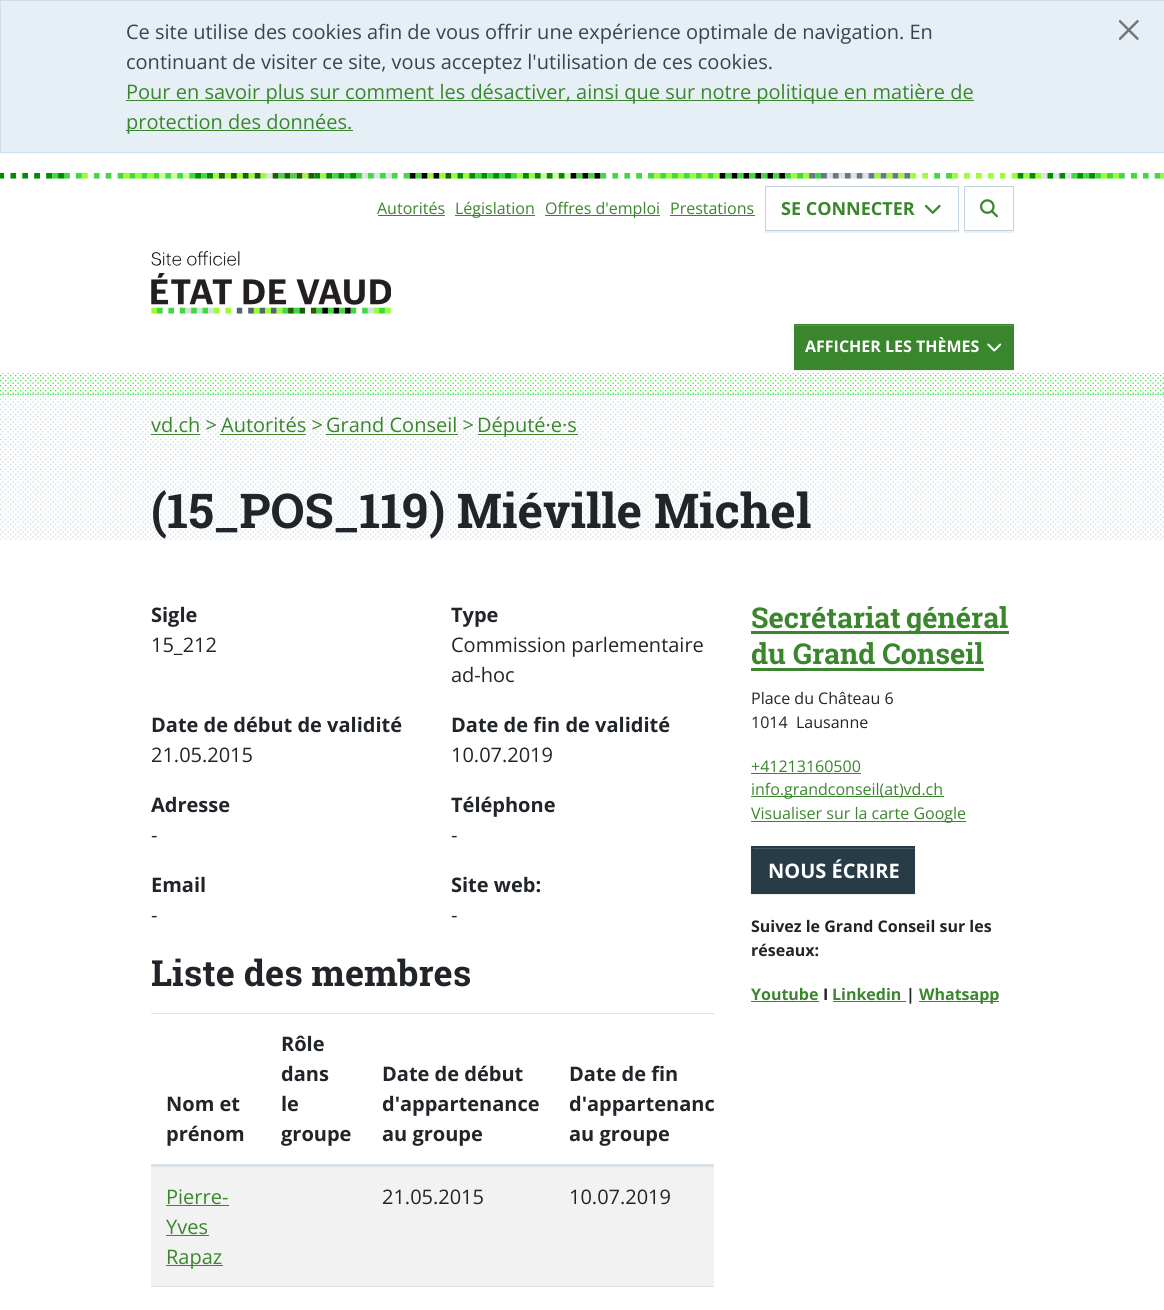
#include <cairo.h>
#include <math.h>
#include <stddef.h>

typedef struct { const char *family; double size; int italic, bold; unsigned color; } style_t;
static cairo_t *ctx;

static void ink(unsigned color) {
    cairo_set_source_rgb(ctx, (color >> 16) / 255.0, (color >> 8 & 255) / 255.0, (color & 255) / 255.0);
}

static void write(double x, double y, const char *s, const style_t *st) {
    cairo_select_font_face(ctx, st->family, st->italic ? CAIRO_FONT_SLANT_ITALIC : CAIRO_FONT_SLANT_NORMAL,
        st->bold ? CAIRO_FONT_WEIGHT_BOLD : CAIRO_FONT_WEIGHT_NORMAL);
    cairo_set_font_size(ctx, st->size);
    ink(st->color);
    cairo_move_to(ctx, x, y);
    cairo_show_text(ctx, s);
}

static void write_spaced(double x, double y, const char *s, double letter, double word) {
    cairo_move_to(ctx, x, y);
    while (*s) {
        char ch[5] = {0};
        int n = 0;
        do ch[n++] = *s++; while ((*s & 0xC0) == 0x80);
        cairo_show_text(ctx, ch);
        cairo_rel_move_to(ctx, letter + word * (*ch == ' '), 0);
    }
}

static void block(double x, double y, double w, double h, unsigned color) {
    ink(color);
    cairo_rectangle(ctx, x, y, w, h);
    cairo_fill(ctx);
}

static void round_path(double x, double y, double w, double h, double r) {
    cairo_new_sub_path(ctx);
    cairo_arc(ctx, x + w - r, y + h - r, r, 0, M_PI / 2);
    cairo_arc(ctx, x + r, y + h - r, r, M_PI / 2, M_PI);
    cairo_arc(ctx, x + r, y + r, r, M_PI, 1.5 * M_PI);
    cairo_arc(ctx, x + w - r, y + r, r, 1.5 * M_PI, 2 * M_PI);
    cairo_close_path(ctx);
}

static void blur_box(double x, double y, double w, double h, double r, double blur, double alpha) {
    cairo_push_group_with_content(ctx, CAIRO_CONTENT_ALPHA);
    cairo_set_operator(ctx, CAIRO_OPERATOR_SOURCE);
    for (int i = 15; i >= -15 && fmin(w, h) + blur * i / 3 > 0; i -= 2) {
        double e = blur * i / 6;
        cairo_set_source_rgba(ctx, 0, 0, 0, alpha * erfc((i - 1) / 8.5) / 2);
        round_path(x - e, y - e, w + 2 * e, h + 2 * e, fmax(0, fmin(r + e + blur * .6, fmin(w, h) / 2 + e)));
        cairo_fill(ctx);
    }
    cairo_pattern_t *soft = cairo_pop_group(ctx);
    cairo_mask(ctx, soft);
    cairo_pattern_destroy(soft);
}

static void paste(const char *path, double x, double y, double w, double h) {
    cairo_surface_t *image = cairo_image_surface_create_from_png(path);
    cairo_save(ctx);
    cairo_set_source_surface(ctx, image, x, y);
    cairo_rectangle(ctx, x, y, w, h);
    cairo_fill(ctx);
    cairo_restore(ctx);
    cairo_surface_destroy(image);
}

static const style_t s1 = {"Open Sans", 20, 0, 0, 0x344652};
static const style_t s2 = {"Open Sans", 20, 0, 0, 0x3a862d};
static const style_t s3 = {"Open Sans", 16, 0, 0, 0x3a862d};
static const style_t s4 = {"Open Sans", 18, 0, 1, 0x3a862d};
static const style_t s5 = {"Open Sans", 16, 0, 1, 0xffffff};
static const style_t s6 = {"Roboto Slab", 48, 0, 1, 0x212529};
static const style_t s7 = {"Open Sans", 20, 0, 1, 0x212529};
static const style_t s8 = {"Open Sans", 20, 0, 0, 0x212529};
static const style_t s9 = {"Roboto Slab", 36, 0, 1, 0x212529};
static const style_t s10 = {"Roboto Slab", 28.75, 0, 1, 0x3a862d};
static const style_t s11 = {"Open Sans", 16, 0, 0, 0x212529};
static const style_t s12 = {"Open Sans", 20, 0, 1, 0xffffff};
static const style_t s13 = {"Open Sans", 16, 0, 1, 0x212529};
static const style_t s14 = {"Open Sans", 16, 0, 1, 0x3a862d};

int main(void) {
    cairo_surface_t *surface = cairo_image_surface_create(CAIRO_FORMAT_RGB24, 1164, 1310);
    ctx = cairo_create(surface);
    cairo_font_options_t *options = cairo_font_options_create();
    cairo_font_options_set_hint_metrics(options, CAIRO_HINT_METRICS_OFF);
    cairo_font_options_set_hint_style(options, CAIRO_HINT_STYLE_NONE);
    cairo_set_font_options(ctx, options);
    cairo_set_miter_limit(ctx, 4);
    ink(0xffffff);
    cairo_paint(ctx);
    ink(0xe6eff5);
    cairo_rectangle(ctx, 0.5, 0.5, 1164, 152);
    cairo_fill_preserve(ctx);
    ink(0xcddfeb);
    cairo_set_line_width(ctx, 1);
    cairo_stroke(ctx);
    write(126, 39, "Ce site utilise des cookies afin de vous offrir une expérience optimale de navigation. En", &s1);
    write(126, 69, "continuant de visiter ce site, vous acceptez l'utilisation de ces cookies.", &s1);
    block(126, 100, 848, 1, 0x3a862d);
    write(126, 99, "Pour en savoir plus sur comment les désactiver, ainsi que sur notre politique en matière de", &s2);
    block(126, 130, 227, 1, 0x3a862d);
    write(126, 129, "protection des données.", &s2);
    paste("pic1.png", 1119, 20, 20, 20);
    paste("pic2.png", 0, 173, 1164, 6);
    write(377, 214, "Autorités", &s3);
    block(378, 215, 67, 1, 0x3a862d);
    block(455, 215, 80, 1, 0x3a862d);
    write(455, 214, "Législation", &s3);
    block(545, 215, 115, 1, 0x3a862d);
    write(545, 214, "Offres d'emploi", &s3);
    write(670, 214, "Prestations", &s3);
    block(670, 215, 85, 1, 0x3a862d);
    cairo_save(ctx);
    cairo_rectangle(ctx, 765, 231, 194, 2);
    cairo_clip(ctx);
    ink(0x000000);
    blur_box(765, 188, 194, 45, 0, 0.5, 0.07);
    cairo_restore(ctx);
    cairo_rectangle(ctx, 765.5, 186.5, 193, 44);
    ink(0xc3d1dc);
    cairo_stroke(ctx);
    write(781, 215, "SE CONNECTER", &s4);
    paste("pic3.png", 924, 204, 17, 10);
    cairo_save(ctx);
    cairo_rectangle(ctx, 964, 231, 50, 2);
    cairo_clip(ctx);
    ink(0x000000);
    blur_box(964, 188, 50, 45, 0, 0.5, 0.07);
    cairo_restore(ctx);
    cairo_rectangle(ctx, 964.5, 186.5, 49, 44);
    ink(0xc3d1dc);
    cairo_stroke(ctx);
    paste("pic4.png", 980, 199, 18, 19);
    paste("pic5.png", 151, 251, 240, 63);
    cairo_new_path(ctx);
    cairo_move_to(ctx, 0, 394.5);
    cairo_line_to(ctx, 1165, 394.5);
    ink(0x40d940);
    cairo_set_line_width(ctx, 1.2);
    cairo_set_dash(ctx, (double[]){1.25, 1.25}, 2, 0);
    cairo_stroke(ctx);
    paste("pic7.png", 0, 373, 1164, 21);
    ink(0x000000);
    blur_box(794, 325, 220, 46, 0, 0.5, 0.07);
    block(794, 324, 220, 46, 0x3a862d);
    block(795, 325, 218, 1, 0x58984d);
    write(805, 352, "AFFICHER LES THÈMES", &s5);
    paste("pic6.png", 987, 343, 15, 9);
    paste("pic8.png", 0, 395, 1164, 85);
    write(151, 432, "vd.ch >", &s2);
    block(151, 434, 49, 1, 0x3a862d);
    write(221, 432, "Autorités >", &s2);
    block(220, 434, 86, 1, 0x3a862d);
    write(326, 432, "Grand Conseil >", &s2);
    block(326, 434, 132, 1, 0x3a862d);
    block(478, 434, 100, 1, 0x3a862d);
    write(477, 432, "Député·e·s", &s2);
    paste("pic9.png", 0, 479, 1164, 62);
    write(151, 528, "(15_POS_119) Miéville Michel", &s6);
    write(151, 622, "Sigle", &s7);
    write(151, 652, "15_212", &s8);
    write(451, 622, "Type", &s7);
    write(451, 652, "Commission parlementaire", &s8);
    write(451, 682, "ad-hoc", &s8);
    write(151, 732, "Date de début de validité", &s7);
    write(151, 762, "21.05.2015", &s8);
    write(451, 732, "Date de fin de validité", &s7);
    write(451, 762, "10.07.2019", &s8);
    write(151, 812, "Adresse", &s7);
    write(151, 842, "-", &s8);
    write(451, 812, "Téléphone", &s7);
    write(451, 842, "-", &s8);
    write(151, 892, "Email", &s7);
    write(151, 922, "-", &s8);
    write(451, 892, "Site web:", &s7);
    write(451, 922, "-", &s8);
    write(151, 986, "Liste des membres", &s9);
    write(166, 1111, "Nom et", &s7);
    write(166, 1141, "prénom", &s7);
    write(281, 1051, "Rôle", &s7);
    write(281, 1081, "dans", &s7);
    write(281, 1111, "le", &s7);
    write(281, 1141, "groupe", &s7);
    write(382, 1081, "Date de début", &s7);
    write(382, 1111, "d'appartenance", &s7);
    write(382, 1141, "au groupe", &s7);
    block(151, 1013, 563, 1, 0xdce3e8);
    block(151, 1164, 563, 3, 0xdce3e8);
    write(569, 1081, "Date de fin", &s7);
    write(569, 1111, "d'appartenanc", &s7);
    write(569, 1141, "au groupe", &s7);
    block(151, 1167, 563, 119, 0xf2f2f2);
    write(166, 1204, "Pierre-", &s2);
    block(166, 1205, 63, 1, 0x3a862d);
    write(166, 1234, "Yves", &s2);
    block(166, 1235, 43, 1, 0x3a862d);
    block(166, 1265, 57, 1, 0x3a862d);
    write(166, 1264, "Rapaz", &s2);
    write(382, 1204, "21.05.2015", &s8);
    write(569, 1204, "10.07.2019", &s8);
    block(151, 1286, 563, 1, 0xdce3e8);
    block(751, 631, 258, 3, 0x3a862d);
    cairo_select_font_face(ctx, "Roboto Slab", CAIRO_FONT_SLANT_NORMAL, CAIRO_FONT_WEIGHT_BOLD);
    cairo_set_font_size(ctx, 28.75);
    write_spaced(751, 628, "Secrétariat général", 0, -2);
    write(751, 664, "du Grand Conseil", &s10);
    block(751, 668, 233, 3, 0x3a862d);
    write(751, 704, "Place du Château 6", &s11);
    write(751, 728, "1014", &s11);
    write(796, 728, "Lausanne", &s11);
    write(751, 772, "+41213160500", &s3);
    block(751, 773, 110, 1, 0x3a862d);
    block(751, 796, 193, 1, 0x3a862d);
    write(751, 795, "info.grandconseil(at)vd.ch", &s3);
    block(751, 821, 215, 1, 0x3a862d);
    write(751, 819, "Visualiser sur la carte Google", &s3);
    ink(0x000000);
    blur_box(751, 848, 164, 47, 0, 0.5, 0.07);
    block(751, 846, 164, 48, 0x273c46);
    block(753, 848, 161, 1, 0x475962);
    write(768, 878, "NOUS ÉCRIRE", &s12);
    write(751, 932, "Suivez le Grand Conseil sur les", &s13);
    write(751, 956, "réseaux:", &s13);
    write(751, 1000, "Youtube", &s14);
    block(751, 1001, 68, 1, 0x3a862d);
    write(823, 1000, "I", &s13);
    write(832, 1000, "Linkedin", &s14);
    block(833, 1001, 73, 1, 0x3a862d);
    write(906, 1000, "|", &s13);
    block(919, 1001, 80, 1, 0x3a862d);
    write(919, 1000, "Whatsapp", &s14);
    cairo_surface_write_to_png(surface, "screenshot.png");
    cairo_font_options_destroy(options);
    cairo_destroy(ctx);
    cairo_surface_destroy(surface);
    return 0;
}
